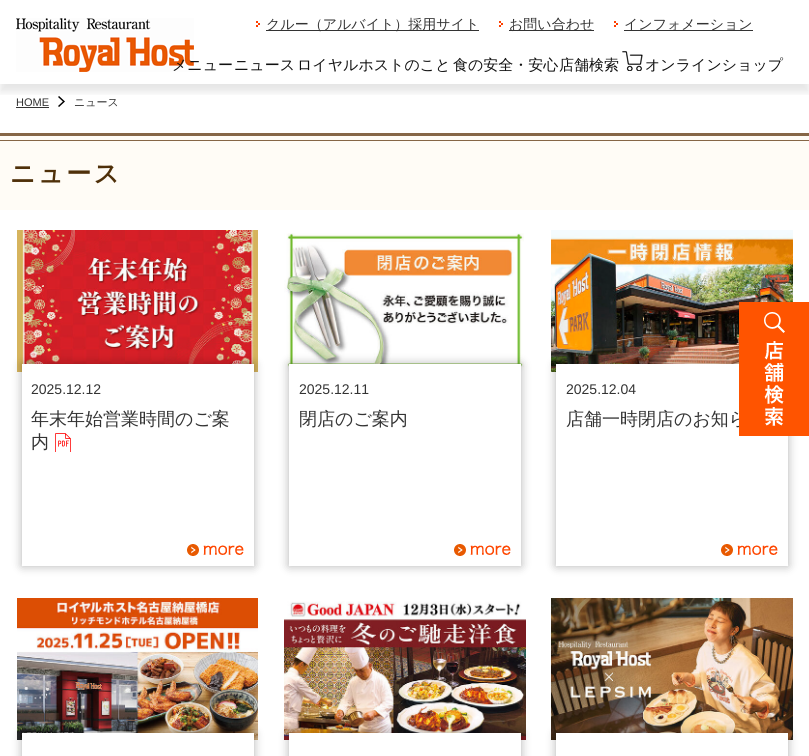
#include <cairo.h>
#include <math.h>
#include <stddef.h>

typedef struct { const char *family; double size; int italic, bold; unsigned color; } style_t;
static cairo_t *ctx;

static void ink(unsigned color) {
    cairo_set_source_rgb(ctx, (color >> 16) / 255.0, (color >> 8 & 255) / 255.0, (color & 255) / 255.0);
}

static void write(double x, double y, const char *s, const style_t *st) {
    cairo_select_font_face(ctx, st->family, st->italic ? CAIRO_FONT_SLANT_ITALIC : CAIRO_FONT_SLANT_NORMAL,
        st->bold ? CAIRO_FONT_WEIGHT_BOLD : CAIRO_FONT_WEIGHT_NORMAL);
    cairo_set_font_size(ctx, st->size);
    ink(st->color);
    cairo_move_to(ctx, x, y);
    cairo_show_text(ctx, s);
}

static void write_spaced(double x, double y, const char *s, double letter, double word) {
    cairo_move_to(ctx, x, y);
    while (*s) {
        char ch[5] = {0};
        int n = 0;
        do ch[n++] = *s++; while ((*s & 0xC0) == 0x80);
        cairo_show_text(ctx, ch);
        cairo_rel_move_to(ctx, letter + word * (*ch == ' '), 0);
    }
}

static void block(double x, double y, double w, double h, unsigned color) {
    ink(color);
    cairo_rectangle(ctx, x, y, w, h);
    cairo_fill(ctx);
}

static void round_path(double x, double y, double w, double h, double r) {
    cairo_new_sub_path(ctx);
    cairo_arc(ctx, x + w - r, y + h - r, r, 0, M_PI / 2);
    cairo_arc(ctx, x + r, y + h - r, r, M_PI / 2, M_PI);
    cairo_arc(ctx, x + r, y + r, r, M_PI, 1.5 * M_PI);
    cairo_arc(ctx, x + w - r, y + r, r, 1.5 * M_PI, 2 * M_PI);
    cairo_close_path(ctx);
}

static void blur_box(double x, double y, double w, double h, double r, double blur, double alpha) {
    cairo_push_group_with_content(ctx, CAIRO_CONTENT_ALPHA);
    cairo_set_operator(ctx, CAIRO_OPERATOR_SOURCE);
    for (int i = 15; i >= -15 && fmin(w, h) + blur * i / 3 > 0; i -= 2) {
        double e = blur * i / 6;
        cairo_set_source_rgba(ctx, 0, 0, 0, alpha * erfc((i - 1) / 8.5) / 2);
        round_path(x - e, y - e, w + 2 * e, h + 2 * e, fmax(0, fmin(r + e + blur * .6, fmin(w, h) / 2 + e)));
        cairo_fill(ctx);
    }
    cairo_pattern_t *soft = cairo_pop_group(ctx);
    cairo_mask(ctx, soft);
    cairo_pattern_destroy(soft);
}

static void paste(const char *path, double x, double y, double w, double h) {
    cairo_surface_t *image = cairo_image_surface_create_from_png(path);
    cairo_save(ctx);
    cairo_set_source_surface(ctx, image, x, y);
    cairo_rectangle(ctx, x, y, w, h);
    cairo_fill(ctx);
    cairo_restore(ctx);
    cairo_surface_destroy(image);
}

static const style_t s1 = {"WenQuanYi Zen Hei Medium", 14, 0, 0, 0x333333};
static const style_t s2 = {"WenQuanYi Zen Hei Medium", 15, 0, 0, 0x111111};
static const style_t s3 = {"WenQuanYi Zen Hei Medium", 18, 0, 0, 0x333333};
static const style_t s4 = {"Liberation Sans", 11, 0, 0, 0x333333};
static const style_t s5 = {"WenQuanYi Zen Hei Medium", 11, 0, 0, 0x333333};
static const style_t s6 = {"Liberation Sans", 14, 0, 0, 0x333333};

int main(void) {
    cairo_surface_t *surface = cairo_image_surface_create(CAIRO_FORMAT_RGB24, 809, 756);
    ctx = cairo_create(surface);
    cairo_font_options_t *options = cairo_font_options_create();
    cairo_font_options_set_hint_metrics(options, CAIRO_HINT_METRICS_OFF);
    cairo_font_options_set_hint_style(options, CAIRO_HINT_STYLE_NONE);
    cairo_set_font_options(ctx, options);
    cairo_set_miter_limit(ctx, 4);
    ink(0xffffff);
    cairo_paint(ctx);
    cairo_save(ctx);
    cairo_rectangle(ctx, 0, 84, 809, 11);
    cairo_clip(ctx);
    ink(0x000000);
    blur_box(0, 8, 809, 84, 0, 4, 0.1);
    cairo_restore(ctx);
    paste("pic1.png", 16, 18, 178, 54);
    paste("pic2.png", 256, 21, 4, 6);
    block(266, 30, 213, 1, 0x333333);
    write(266, 29, "クルー（アルバイト）採用サイト", &s1);
    paste("pic2.png", 499, 21, 4, 6);
    block(509, 30, 85, 1, 0x333333);
    write(509, 29, "お問い合わせ", &s1);
    paste("pic2.png", 614, 21, 4, 6);
    block(624, 30, 129, 1, 0x333333);
    write(624, 29, "インフォメーション", &s1);
    write(172, 70, "メニュー", &s2);
    write(234, 70, "ニュース", &s2);
    write(297, 70, "ロイヤルホストのこと", &s2);
    write(453, 70, "食の安全・安心", &s2);
    write(559, 70, "店舗検索", &s2);
    paste("pic3.png", 622, 51, 21, 20);
    write(645, 70, "オンラインショップ", &s2);
    paste("pic10.png", 551, 230, 242, 142);
    ink(0x000000);
    blur_box(556, 364, 232, 202, 0, 5, 0.3);
    block(556, 364, 232, 202, 0xffffff);
    write(566, 425, "店舗一時閉店のお知ら", &s3);
    paste("pic4.png", 739, 302, 70, 134);
    write(16, 106, "HOME", &s4);
    block(16, 107, 33, 1, 0x333333);
    paste("pic5.png", 58, 96, 7, 11);
    write(74, 106, "ニュース", &s5);
    block(0, 136, 809, 74, 0xfffcf6);
    block(0, 133, 809, 3, 0x866646);
    block(0, 140, 809, 1, 0x866646);
    cairo_select_font_face(ctx, "WenQuanYi Zen Hei", CAIRO_FONT_SLANT_NORMAL, CAIRO_FONT_WEIGHT_BOLD);
    cairo_set_font_size(ctx, 25);
    ink(0x4f3009);
    write_spaced(10, 182, "ニュース", 2.5, 0);
    paste("pic6.png", 17, 230, 241, 142);
    ink(0x000000);
    blur_box(22, 364, 232, 202, 0, 5, 0.3);
    block(22, 364, 232, 202, 0xffffff);
    write(31, 394, "2025.12.12", &s6);
    write(31, 425, "年末年始営業時間のご案", &s3);
    write(31, 448, "内", &s3);
    paste("pic7.png", 55, 433, 16, 19);
    paste("pic8.png", 187, 544, 57, 12);
    paste("pic9.png", 284, 233, 240, 139);
    ink(0x000000);
    blur_box(289, 364, 232, 202, 0, 5, 0.3);
    block(289, 364, 232, 202, 0xffffff);
    write(299, 394, "2025.12.11", &s6);
    write(299, 425, "閉店のご案内", &s3);
    paste("pic8.png", 454, 544, 57, 12);
    write(566, 394, "2025.12.04", &s6);
    paste("pic8.png", 721, 544, 57, 12);
    paste("pic11.png", 17, 598, 241, 142);
    ink(0x000000);
    blur_box(22, 733, 232, 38, 0, 5, 0.3);
    block(22, 733, 232, 23, 0xffffff);
    paste("pic12.png", 284, 601, 242, 139);
    ink(0x000000);
    blur_box(289, 733, 232, 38, 0, 5, 0.3);
    block(289, 733, 232, 23, 0xffffff);
    paste("pic13.png", 551, 598, 242, 142);
    ink(0x000000);
    blur_box(556, 733, 232, 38, 0, 5, 0.3);
    block(556, 733, 232, 23, 0xffffff);
    cairo_surface_write_to_png(surface, "screenshot.png");
    cairo_font_options_destroy(options);
    cairo_destroy(ctx);
    cairo_surface_destroy(surface);
    return 0;
}
